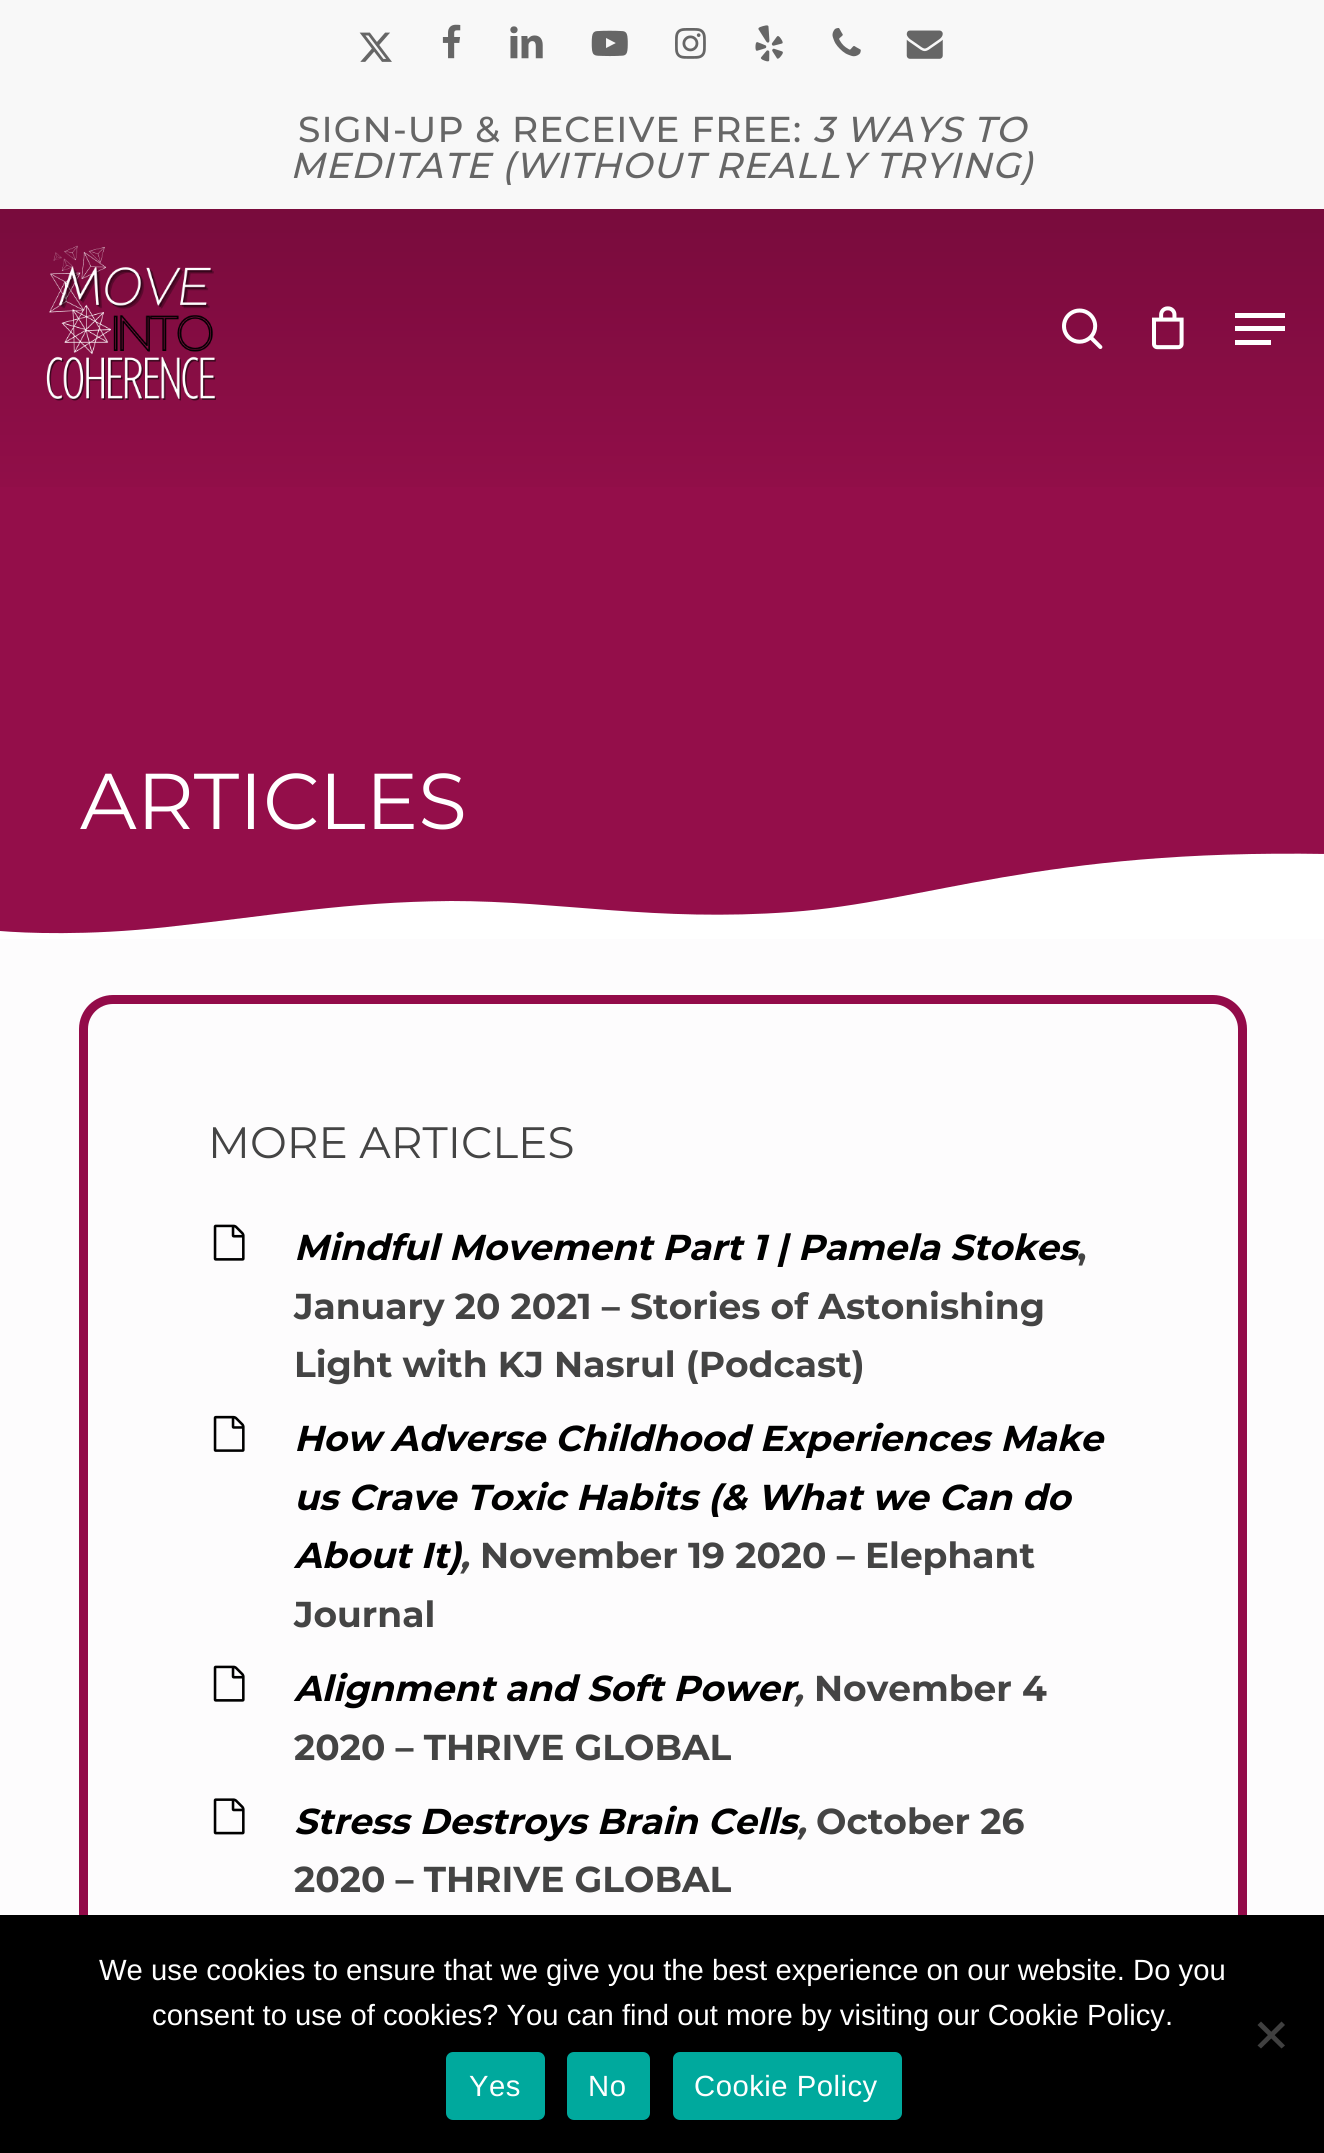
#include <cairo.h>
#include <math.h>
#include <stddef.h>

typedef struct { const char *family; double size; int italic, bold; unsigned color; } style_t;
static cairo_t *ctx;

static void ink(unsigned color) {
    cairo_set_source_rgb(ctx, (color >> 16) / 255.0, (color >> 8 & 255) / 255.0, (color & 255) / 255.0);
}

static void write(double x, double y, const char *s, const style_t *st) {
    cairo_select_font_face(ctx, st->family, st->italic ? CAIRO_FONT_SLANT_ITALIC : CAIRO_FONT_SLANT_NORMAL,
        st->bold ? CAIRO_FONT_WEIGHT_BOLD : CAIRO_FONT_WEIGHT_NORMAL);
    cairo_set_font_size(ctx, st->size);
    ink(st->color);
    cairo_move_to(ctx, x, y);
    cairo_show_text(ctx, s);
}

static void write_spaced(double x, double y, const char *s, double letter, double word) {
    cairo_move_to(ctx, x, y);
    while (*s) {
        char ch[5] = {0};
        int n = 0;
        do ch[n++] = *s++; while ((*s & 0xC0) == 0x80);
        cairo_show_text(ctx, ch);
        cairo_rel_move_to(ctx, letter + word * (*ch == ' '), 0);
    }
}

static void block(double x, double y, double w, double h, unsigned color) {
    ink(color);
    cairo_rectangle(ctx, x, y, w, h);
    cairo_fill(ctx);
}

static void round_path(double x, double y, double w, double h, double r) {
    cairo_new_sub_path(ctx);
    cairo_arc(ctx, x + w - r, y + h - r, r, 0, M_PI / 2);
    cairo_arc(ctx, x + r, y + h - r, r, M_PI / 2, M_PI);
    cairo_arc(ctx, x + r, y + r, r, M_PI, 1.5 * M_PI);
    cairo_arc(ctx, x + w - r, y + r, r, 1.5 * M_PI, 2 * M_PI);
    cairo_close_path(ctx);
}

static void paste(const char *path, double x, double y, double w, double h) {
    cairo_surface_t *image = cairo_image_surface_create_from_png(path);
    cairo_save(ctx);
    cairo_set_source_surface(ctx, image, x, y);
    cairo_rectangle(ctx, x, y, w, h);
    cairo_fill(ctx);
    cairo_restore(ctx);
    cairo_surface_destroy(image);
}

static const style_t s1 = {"Montserrat", 79, 0, 0, 0xffffff};
static const style_t s2 = {"Montserrat", 43.9, 0, 0, 0x444444};
static const style_t s3 = {"Montserrat", 36, 1, 1, 0x000000};
static const style_t s4 = {"Montserrat", 36, 0, 1, 0x444444};
static const style_t s5 = {"Montserrat", 36, 1, 1, 0x444444};
static const style_t s6 = {"Liberation Sans", 29.25, 0, 0, 0xffffff};

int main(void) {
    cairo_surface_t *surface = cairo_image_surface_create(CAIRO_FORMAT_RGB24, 1324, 2153);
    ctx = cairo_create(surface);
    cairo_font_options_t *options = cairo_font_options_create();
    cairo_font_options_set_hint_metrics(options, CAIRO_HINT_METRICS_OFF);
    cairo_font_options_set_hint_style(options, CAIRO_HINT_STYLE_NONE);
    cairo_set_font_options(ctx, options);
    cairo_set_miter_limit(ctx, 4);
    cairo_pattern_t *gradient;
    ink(0xfdfcfd);
    cairo_paint(ctx);
    block(0, 0, 1324, 209, 0xf8f8f8);
    paste("pic1.png", 359, 32, 33, 30);
    paste("pic2.png", 442, 24, 19, 35);
    paste("pic3.png", 510, 26, 33, 33);
    paste("pic4.png", 591, 30, 37, 27);
    paste("pic5.png", 675, 28, 31, 31);
    paste("pic6.png", 755, 25, 28, 37);
    paste("pic7.png", 832, 28, 29, 29);
    paste("pic8.png", 906, 30, 37, 29);
    cairo_select_font_face(ctx, "Montserrat Medium", CAIRO_FONT_SLANT_NORMAL, CAIRO_FONT_WEIGHT_NORMAL);
    cairo_set_font_size(ctx, 36);
    ink(0x666666);
    write_spaced(298, 142, "SIGN-UP & RECEIVE FREE:", 1.1, 0);
    cairo_select_font_face(ctx, "Montserrat Medium", CAIRO_FONT_SLANT_ITALIC, CAIRO_FONT_WEIGHT_NORMAL);
    write_spaced(813, 142, "3 WAYS TO", 1.1, 0);
    write_spaced(290, 178, "MEDITATE (WITHOUT REALLY TRYING)", 1.1, 0);
    block(0, 209, 1324, 725, 0x940e4a);
    gradient = cairo_pattern_create_linear(663, 536, 663, 0);
    cairo_pattern_add_color_stop_rgba(gradient, 0, 1, 1, 1, 0);
    cairo_pattern_add_color_stop_rgba(gradient, 0.01, 0, 0, 0, 0);
    cairo_pattern_add_color_stop_rgba(gradient, 0.16, 0, 0, 0, 0.04);
    cairo_pattern_add_color_stop_rgba(gradient, 0.75, 0, 0, 0, 0.23);
    cairo_pattern_add_color_stop_rgba(gradient, 1, 0, 0, 0, 0.33);
    cairo_set_source(ctx, gradient);
    cairo_pattern_destroy(gradient);
    cairo_rectangle(ctx, 0, 209, 1324, 278);
    cairo_fill(ctx);
    paste("pic9.png", 46, 245, 170, 156);
    paste("pic10.png", 1062, 308, 41, 41);
    paste("pic11.png", 1152, 306, 32, 44);
    block(1235, 313, 50, 5, 0xffffff);
    block(1235, 340, 36, 5, 0xffffff);
    block(1235, 326, 50, 5, 0xffffff);
    write(80, 829, "ARTICLES", &s1);
    cairo_new_path(ctx);
    cairo_move_to(ctx, 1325, 939);
    cairo_line_to(ctx, 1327, 854);
    cairo_curve_to(ctx, 1039, 849, 928, 902, 791, 912);
    cairo_curve_to(ctx, 655, 922, 561, 901, 451, 901);
    cairo_curve_to(ctx, 345, 902, 278, 915, 167, 927);
    cairo_curve_to(ctx, 86, 936, 24, 933, 0, 931);
    cairo_line_to(ctx, 0, 939);
    cairo_close_path(ctx);
    cairo_fill(ctx);
    round_path(83.5, 999.5, 1159, 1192, 29.5);
    ink(0x930b49);
    cairo_set_line_width(ctx, 9);
    cairo_stroke(ctx);
    write(208, 1158, "MORE ARTICLES", &s2);
    paste("pic12.png", 213, 1224, 32, 37);
    write(294, 1260, "Mindful Movement Part 1 | Pamela Stokes", &s3);
    write(1077, 1260, ",", &s4);
    write(294, 1319, "January 20 2021 – Stories of Astonishing", &s4);
    write(294, 1377, "Light with KJ Nasrul (Podcast)", &s4);
    paste("pic13.png", 213, 1415, 32, 37);
    write(294, 1451, "How Adverse Childhood Experiences Make", &s3);
    write(294, 1510, "us Crave Toxic Habits (& What we Can do", &s3);
    write(294, 1568, "About It)", &s3);
    write(460, 1568, ",", &s5);
    write(480, 1568, "November 19 2020 – Elephant", &s4);
    write(294, 1627, "Journal", &s4);
    paste("pic12.png", 213, 1665, 32, 37);
    write(294, 1701, "Alignment and Soft Power", &s3);
    write(814, 1701, "November 4", &s4);
    write(794, 1701, ",", &s5);
    write(294, 1760, "2020 – THRIVE GLOBAL", &s4);
    paste("pic14.png", 213, 1798, 32, 37);
    write(294, 1834, "Stress Destroys Brain Cells", &s3);
    write(797, 1834, ",", &s5);
    write(816, 1834, "October 26", &s4);
    write(294, 1892, "2020 – THRIVE GLOBAL", &s4);
    block(0, 1915, 1324, 238, 0x000000);
    write(99, 1980, "We use cookies to ensure that we give you the best experience on our website. Do you", &s6);
    write(152, 2025, "consent to use of cookies? You can find out more by visiting our Cookie Policy.", &s6);
    ink(0x404040);
    cairo_new_path(ctx);
    cairo_move_to(ctx, 1281.5, 2021.5);
    cairo_line_to(ctx, 1285, 2025);
    cairo_line_to(ctx, 1261, 2048.5);
    cairo_line_to(ctx, 1257.5, 2045.5);
    cairo_close_path(ctx);
    cairo_fill(ctx);
    cairo_new_path(ctx);
    cairo_move_to(ctx, 1257.5, 2025);
    cairo_line_to(ctx, 1261, 2021.5);
    cairo_line_to(ctx, 1285, 2045.5);
    cairo_line_to(ctx, 1281.5, 2048.5);
    cairo_close_path(ctx);
    cairo_fill(ctx);
    ink(0x00a99d);
    round_path(446, 2052, 99, 68, 7);
    cairo_fill(ctx);
    ink(0xffffff);
    write_spaced(469, 2096, "Yes", 0.5, 0);
    ink(0x00a99d);
    round_path(567, 2052, 83, 68, 7);
    cairo_fill(ctx);
    ink(0xffffff);
    write_spaced(588, 2096, "No", 0.5, 0);
    ink(0x00a99d);
    round_path(673, 2052, 229, 68, 7);
    cairo_fill(ctx);
    ink(0xffffff);
    write_spaced(694, 2096, "Cookie Policy", 0.5, 0);
    cairo_surface_write_to_png(surface, "screenshot.png");
    cairo_font_options_destroy(options);
    cairo_destroy(ctx);
    cairo_surface_destroy(surface);
    return 0;
}
